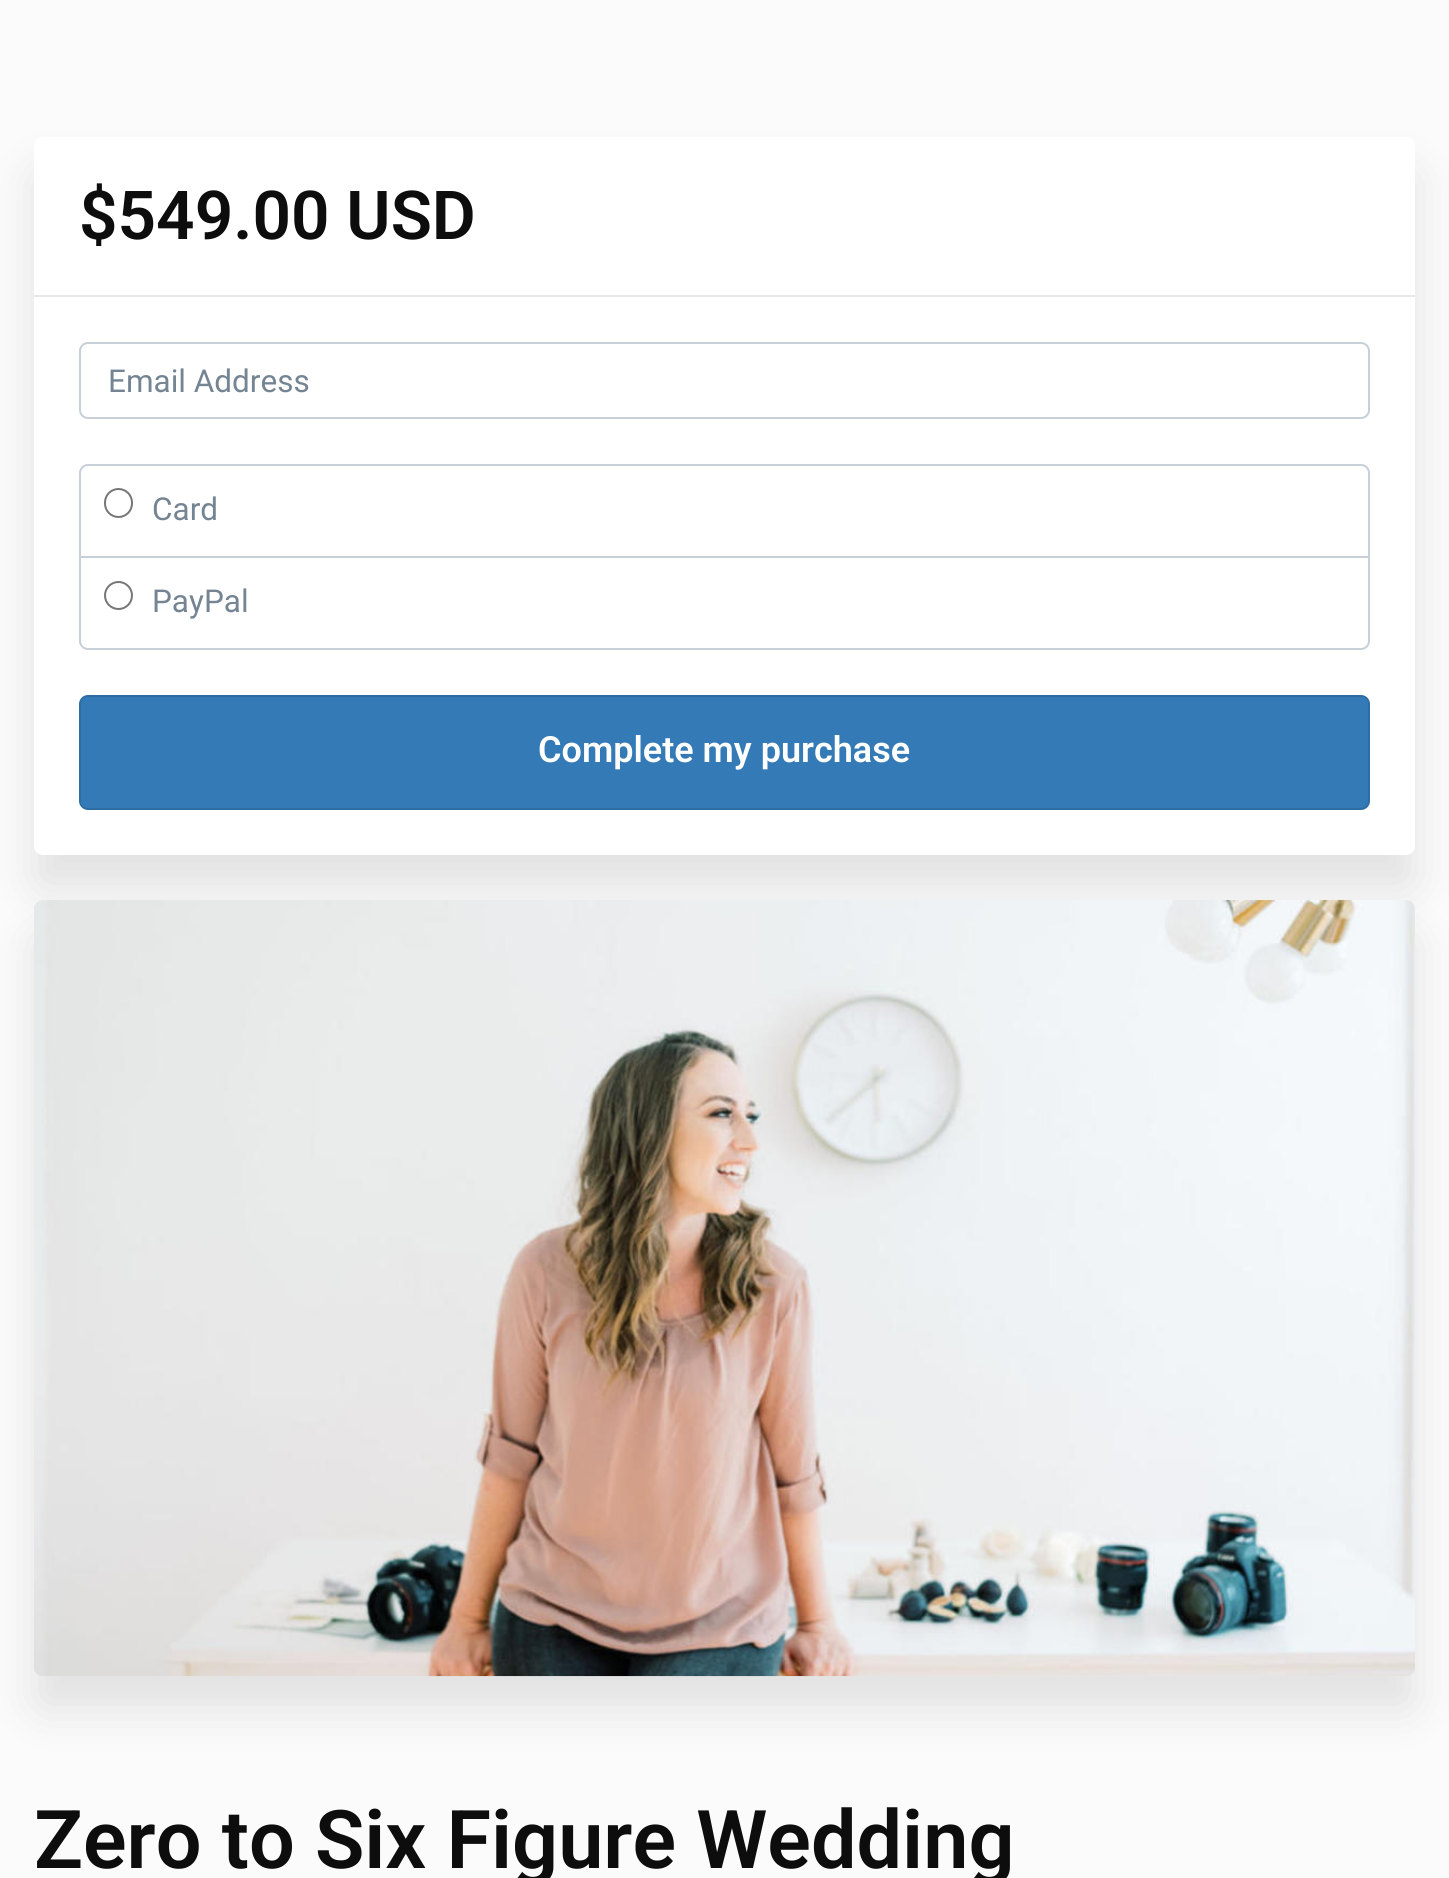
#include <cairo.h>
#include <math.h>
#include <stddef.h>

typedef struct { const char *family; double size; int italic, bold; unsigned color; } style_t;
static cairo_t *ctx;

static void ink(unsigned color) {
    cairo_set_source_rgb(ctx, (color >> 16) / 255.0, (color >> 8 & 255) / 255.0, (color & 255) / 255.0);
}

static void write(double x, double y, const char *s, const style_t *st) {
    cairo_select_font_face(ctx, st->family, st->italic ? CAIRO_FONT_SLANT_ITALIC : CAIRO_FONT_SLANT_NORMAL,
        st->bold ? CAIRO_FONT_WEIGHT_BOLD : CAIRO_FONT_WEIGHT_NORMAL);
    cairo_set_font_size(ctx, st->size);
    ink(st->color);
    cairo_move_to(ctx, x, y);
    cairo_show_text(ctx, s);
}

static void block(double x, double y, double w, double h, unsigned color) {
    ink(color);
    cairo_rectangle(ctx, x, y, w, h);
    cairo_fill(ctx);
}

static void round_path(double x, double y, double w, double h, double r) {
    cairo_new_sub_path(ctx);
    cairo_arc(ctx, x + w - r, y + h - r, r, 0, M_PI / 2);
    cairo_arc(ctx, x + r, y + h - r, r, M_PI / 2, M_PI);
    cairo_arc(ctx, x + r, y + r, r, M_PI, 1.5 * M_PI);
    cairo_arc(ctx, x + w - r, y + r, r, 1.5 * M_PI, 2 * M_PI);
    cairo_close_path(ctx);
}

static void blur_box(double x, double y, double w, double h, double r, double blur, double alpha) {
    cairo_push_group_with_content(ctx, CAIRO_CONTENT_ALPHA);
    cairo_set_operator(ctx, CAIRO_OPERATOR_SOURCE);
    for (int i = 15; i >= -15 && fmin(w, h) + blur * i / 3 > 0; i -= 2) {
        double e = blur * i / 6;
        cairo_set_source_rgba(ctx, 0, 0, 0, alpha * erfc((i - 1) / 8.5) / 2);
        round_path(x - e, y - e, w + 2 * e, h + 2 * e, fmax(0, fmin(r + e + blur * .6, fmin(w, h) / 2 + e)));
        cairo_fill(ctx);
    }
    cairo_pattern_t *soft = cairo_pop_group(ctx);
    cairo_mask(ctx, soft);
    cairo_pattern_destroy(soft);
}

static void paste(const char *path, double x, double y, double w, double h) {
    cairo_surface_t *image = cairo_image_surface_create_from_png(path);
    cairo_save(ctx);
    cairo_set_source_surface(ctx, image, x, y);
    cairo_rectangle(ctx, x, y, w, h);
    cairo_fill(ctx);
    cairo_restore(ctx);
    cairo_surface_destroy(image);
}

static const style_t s1 = {"Roboto SemiBold", 67.5, 0, 0, 0x0d0d0d};
static const style_t s2 = {"Roboto", 31.5, 0, 0, 0x748493};
static const style_t s3 = {"Roboto SemiBold", 36, 0, 0, 0xffffff};
static const style_t s4 = {"Roboto SemiBold", 81, 0, 0, 0x0d0d0d};

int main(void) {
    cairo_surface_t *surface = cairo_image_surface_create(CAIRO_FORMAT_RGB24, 1449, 1878);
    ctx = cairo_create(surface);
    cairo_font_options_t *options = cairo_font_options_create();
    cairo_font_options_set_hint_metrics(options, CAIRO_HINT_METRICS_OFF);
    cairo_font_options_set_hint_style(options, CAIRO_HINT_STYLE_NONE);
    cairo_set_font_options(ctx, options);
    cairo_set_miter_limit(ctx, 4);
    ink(0xfbfbfb);
    cairo_paint(ctx);
    ink(0x000000);
    blur_box(34, 171, 1381, 718, 9, 22.5, 0.1);
    ink(0xffffff);
    round_path(34, 137, 1381, 718, 9);
    cairo_fill(ctx);
    block(34, 295, 1381, 2, 0xe5e9e9);
    write(79, 239, "$549.00 USD", &s1);
    round_path(80, 343, 1289, 75, 8);
    ink(0xc7cfd8);
    cairo_stroke(ctx);
    write(108, 392, "Email Address", &s2);
    round_path(80, 465, 1289, 184, 8);
    ink(0xc7cfd8);
    cairo_stroke(ctx);
    block(81, 556, 1287, 2, 0xc7cfd8);
    round_path(105, 489, 27, 28, 13.5);
    ink(0x767676);
    cairo_stroke(ctx);
    write(152, 520, "Card", &s2);
    cairo_new_path(ctx);
    cairo_arc(ctx, 118.5, 595.5, 13.5, 0, 2 * M_PI);
    ink(0x767676);
    cairo_stroke(ctx);
    write(152, 612, "PayPal", &s2);
    ink(0x337ab7);
    round_path(80, 696, 1289, 113, 8);
    cairo_fill_preserve(ctx);
    ink(0x2e6da4);
    cairo_stroke(ctx);
    write(538, 762, "Complete my purchase", &s3);
    ink(0x000000);
    blur_box(34, 934, 1381, 776, 9, 22.5, 0.1);
    paste("pic1.png", 34, 900, 1381, 777);
    write(34, 1868, "Zero to Six Figure Wedding", &s4);
    cairo_surface_write_to_png(surface, "screenshot.png");
    cairo_font_options_destroy(options);
    cairo_destroy(ctx);
    cairo_surface_destroy(surface);
    return 0;
}
